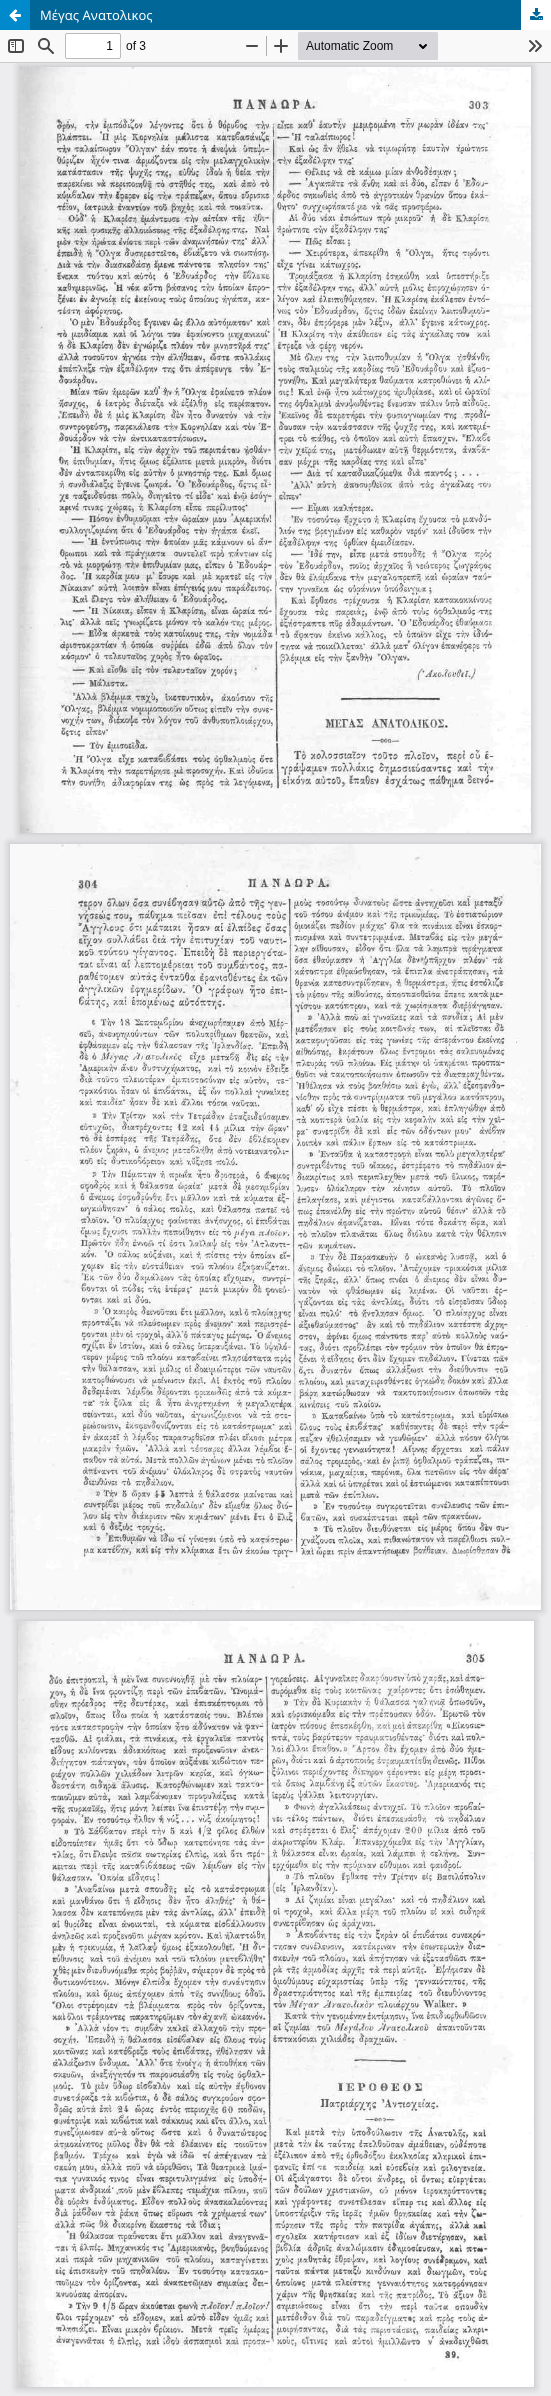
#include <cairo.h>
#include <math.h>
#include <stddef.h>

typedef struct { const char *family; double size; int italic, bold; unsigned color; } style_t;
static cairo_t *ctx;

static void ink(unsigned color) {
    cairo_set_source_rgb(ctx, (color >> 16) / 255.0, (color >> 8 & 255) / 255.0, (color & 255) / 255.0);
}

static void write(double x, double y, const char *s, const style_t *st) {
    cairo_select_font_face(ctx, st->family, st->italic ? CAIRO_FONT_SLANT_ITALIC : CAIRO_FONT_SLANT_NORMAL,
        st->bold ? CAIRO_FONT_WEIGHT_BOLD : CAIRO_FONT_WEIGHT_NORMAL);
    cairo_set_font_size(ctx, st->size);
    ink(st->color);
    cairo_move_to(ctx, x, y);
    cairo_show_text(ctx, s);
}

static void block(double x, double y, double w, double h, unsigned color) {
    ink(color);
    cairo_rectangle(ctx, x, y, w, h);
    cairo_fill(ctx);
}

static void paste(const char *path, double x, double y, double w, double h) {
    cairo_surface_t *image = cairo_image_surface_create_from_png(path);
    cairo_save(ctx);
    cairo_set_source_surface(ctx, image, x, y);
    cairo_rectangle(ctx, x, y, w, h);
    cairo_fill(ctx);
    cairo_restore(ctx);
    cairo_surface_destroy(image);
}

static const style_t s1 = {"Noto Sans", 13, 0, 0, 0xffffff};

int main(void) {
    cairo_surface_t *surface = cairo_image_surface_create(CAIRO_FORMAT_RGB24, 551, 2396);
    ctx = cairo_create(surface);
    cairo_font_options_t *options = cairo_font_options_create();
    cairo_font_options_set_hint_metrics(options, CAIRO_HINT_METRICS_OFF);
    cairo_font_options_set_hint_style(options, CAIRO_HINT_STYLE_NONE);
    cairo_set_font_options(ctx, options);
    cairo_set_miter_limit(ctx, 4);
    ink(0xffffff);
    cairo_paint(ctx);
    block(30, 0, 491, 30, 0x006798);
    block(0, 0, 30, 30, 0x008acb);
    paste("pic1.png", 9, 9, 12, 13);
    write(40, 20, "Μέγας Ανατολικος", &s1);
    paste("pic2.png", 530, 8, 13, 12);
    paste("pic3.png", 0, 30, 551, 2366);
    cairo_surface_write_to_png(surface, "screenshot.png");
    cairo_font_options_destroy(options);
    cairo_destroy(ctx);
    cairo_surface_destroy(surface);
    return 0;
}
